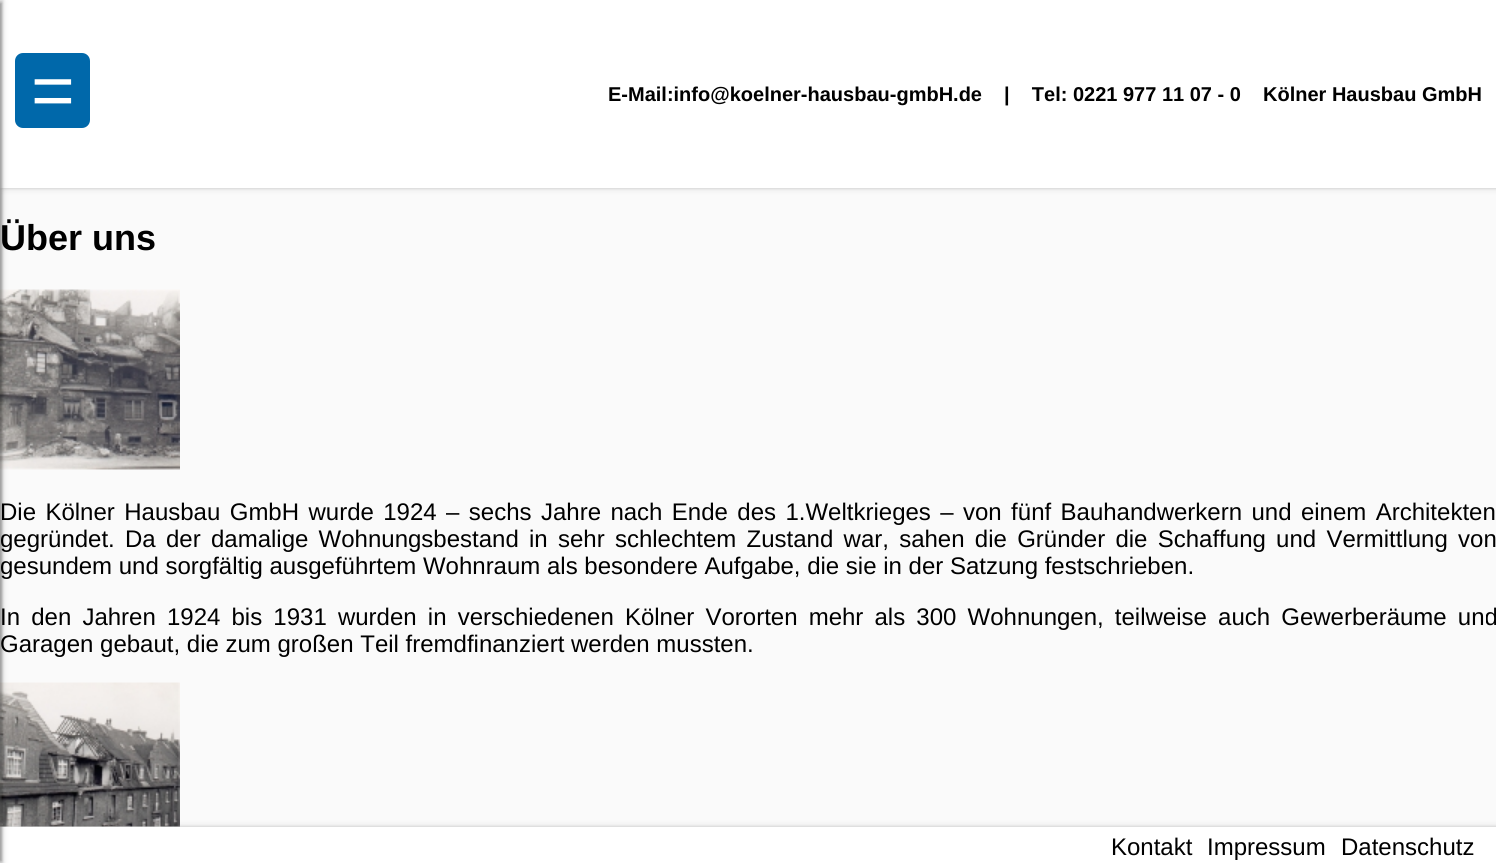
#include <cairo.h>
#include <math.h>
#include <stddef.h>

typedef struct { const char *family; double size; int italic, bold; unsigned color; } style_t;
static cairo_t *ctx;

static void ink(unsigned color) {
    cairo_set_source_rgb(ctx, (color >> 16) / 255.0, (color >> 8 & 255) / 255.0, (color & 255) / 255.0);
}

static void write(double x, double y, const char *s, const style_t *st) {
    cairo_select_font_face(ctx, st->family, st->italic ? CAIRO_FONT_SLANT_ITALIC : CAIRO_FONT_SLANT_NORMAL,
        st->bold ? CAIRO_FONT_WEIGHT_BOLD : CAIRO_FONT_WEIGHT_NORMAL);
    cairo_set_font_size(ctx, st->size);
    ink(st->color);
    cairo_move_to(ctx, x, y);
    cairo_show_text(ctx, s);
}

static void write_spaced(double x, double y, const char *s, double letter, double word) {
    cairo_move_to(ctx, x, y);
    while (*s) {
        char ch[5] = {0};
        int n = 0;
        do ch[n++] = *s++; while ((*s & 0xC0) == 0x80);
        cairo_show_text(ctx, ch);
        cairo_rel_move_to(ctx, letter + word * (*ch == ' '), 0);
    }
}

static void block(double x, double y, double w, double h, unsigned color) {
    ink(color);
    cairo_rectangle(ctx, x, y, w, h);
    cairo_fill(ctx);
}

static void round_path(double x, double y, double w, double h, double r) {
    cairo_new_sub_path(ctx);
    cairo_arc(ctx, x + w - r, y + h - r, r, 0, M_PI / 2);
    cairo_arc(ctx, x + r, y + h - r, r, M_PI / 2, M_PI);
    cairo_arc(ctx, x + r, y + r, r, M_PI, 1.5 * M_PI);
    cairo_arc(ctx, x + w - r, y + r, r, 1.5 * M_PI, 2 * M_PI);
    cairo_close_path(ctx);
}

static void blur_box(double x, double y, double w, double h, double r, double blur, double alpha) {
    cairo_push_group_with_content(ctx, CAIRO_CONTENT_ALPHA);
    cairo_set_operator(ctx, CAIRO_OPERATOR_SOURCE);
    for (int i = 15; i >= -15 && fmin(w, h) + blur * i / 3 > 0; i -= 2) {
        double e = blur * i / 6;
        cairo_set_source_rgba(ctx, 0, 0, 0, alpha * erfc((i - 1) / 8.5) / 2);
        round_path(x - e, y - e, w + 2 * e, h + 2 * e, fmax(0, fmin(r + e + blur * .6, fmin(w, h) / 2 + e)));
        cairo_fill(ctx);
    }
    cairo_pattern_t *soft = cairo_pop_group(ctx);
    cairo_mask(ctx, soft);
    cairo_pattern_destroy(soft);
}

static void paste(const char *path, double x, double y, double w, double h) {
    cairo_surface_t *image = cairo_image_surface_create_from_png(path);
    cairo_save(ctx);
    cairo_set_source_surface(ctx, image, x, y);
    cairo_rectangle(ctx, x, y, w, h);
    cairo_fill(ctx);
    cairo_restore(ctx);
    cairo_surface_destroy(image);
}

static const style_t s1 = {"Liberation Sans", 75, 0, 0, 0xffffff};
static const style_t s2 = {"Liberation Sans", 20, 0, 1, 0x000000};
static const style_t s3 = {"Liberation Sans", 36, 0, 1, 0x000000};
static const style_t s4 = {"Liberation Sans", 24, 0, 0, 0x000000};

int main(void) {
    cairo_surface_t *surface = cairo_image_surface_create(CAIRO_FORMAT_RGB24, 1496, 863);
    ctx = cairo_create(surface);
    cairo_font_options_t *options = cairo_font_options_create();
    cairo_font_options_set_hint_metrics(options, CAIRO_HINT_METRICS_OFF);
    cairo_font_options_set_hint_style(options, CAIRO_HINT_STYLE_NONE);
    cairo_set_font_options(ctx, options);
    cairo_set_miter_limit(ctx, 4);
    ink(0xfafafa);
    cairo_paint(ctx);
    ink(0x000000);
    blur_box(2, 0, 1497, 188, 0, 4, 0.12);
    blur_box(3, 0, 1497, 188, 0, 1.5, 0.14);
    block(0, 0, 1496, 188, 0xffffff);
    paste("pic1.png", 0, 289, 180, 181);
    ink(0x000000);
    blur_box(2, 827, 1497, 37, 0, 4, 0.12);
    blur_box(3, 827, 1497, 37, 0, 1.5, 0.14);
    paste("pic2.png", 0, 682, 180, 145);
    block(0, 827, 1496, 36, 0xffffff);
    ink(0x000000);
    blur_box(-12, 0, 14, 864, 0, 4, 0.12);
    blur_box(-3, 3, 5, 858, 0, 1, 0.2);
    blur_box(-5, 0, 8, 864, 0, 1.5, 0.14);
    ink(0x0068aa);
    round_path(15, 53, 75, 75, 8);
    cairo_fill(ctx);
    write(31, 116, "=", &s1);
    write(608, 101, "E-Mail:info@koelner-hausbau-gmbH.de", &s2);
    write(1004, 101, "|    Tel: 0221 977 11 07 - 0", &s2);
    write(1263, 101, "Kölner Hausbau GmbH", &s2);
    write(0, 250, "Über uns", &s3);
    cairo_select_font_face(ctx, "Liberation Sans", CAIRO_FONT_SLANT_NORMAL, CAIRO_FONT_WEIGHT_NORMAL);
    cairo_set_font_size(ctx, 24);
    write_spaced(0, 520, "Die Kölner Hausbau GmbH wurde 1924 – sechs Jahre nach Ende des 1.Weltkrieges – von fünf Bauhandwerkern und einem Architekten", 0, 2.75);
    write_spaced(0, 547, "gegründet. Da der damalige Wohnungsbestand in sehr schlechtem Zustand war, sahen die Gründer die Schaffung und Vermittlung von", 0, 3.6);
    write(0, 574, "gesundem und sorgfältig ausgeführtem Wohnraum als besondere Aufgabe, die sie in der Satzung festschrieben.", &s4);
    write_spaced(0, 625, "In den Jahren 1924 bis 1931 wurden in verschiedenen Kölner Vororten mehr als 300 Wohnungen, teilweise auch Gewerberäume und", 0, 4.5);
    write(0, 652, "Garagen gebaut, die zum großen Teil fremdfinanziert werden mussten.", &s4);
    write(1111, 855, "Kontakt", &s4);
    write(1207, 855, "Impressum", &s4);
    write(1341, 855, "Datenschutz", &s4);
    cairo_surface_write_to_png(surface, "screenshot.png");
    cairo_font_options_destroy(options);
    cairo_destroy(ctx);
    cairo_surface_destroy(surface);
    return 0;
}
